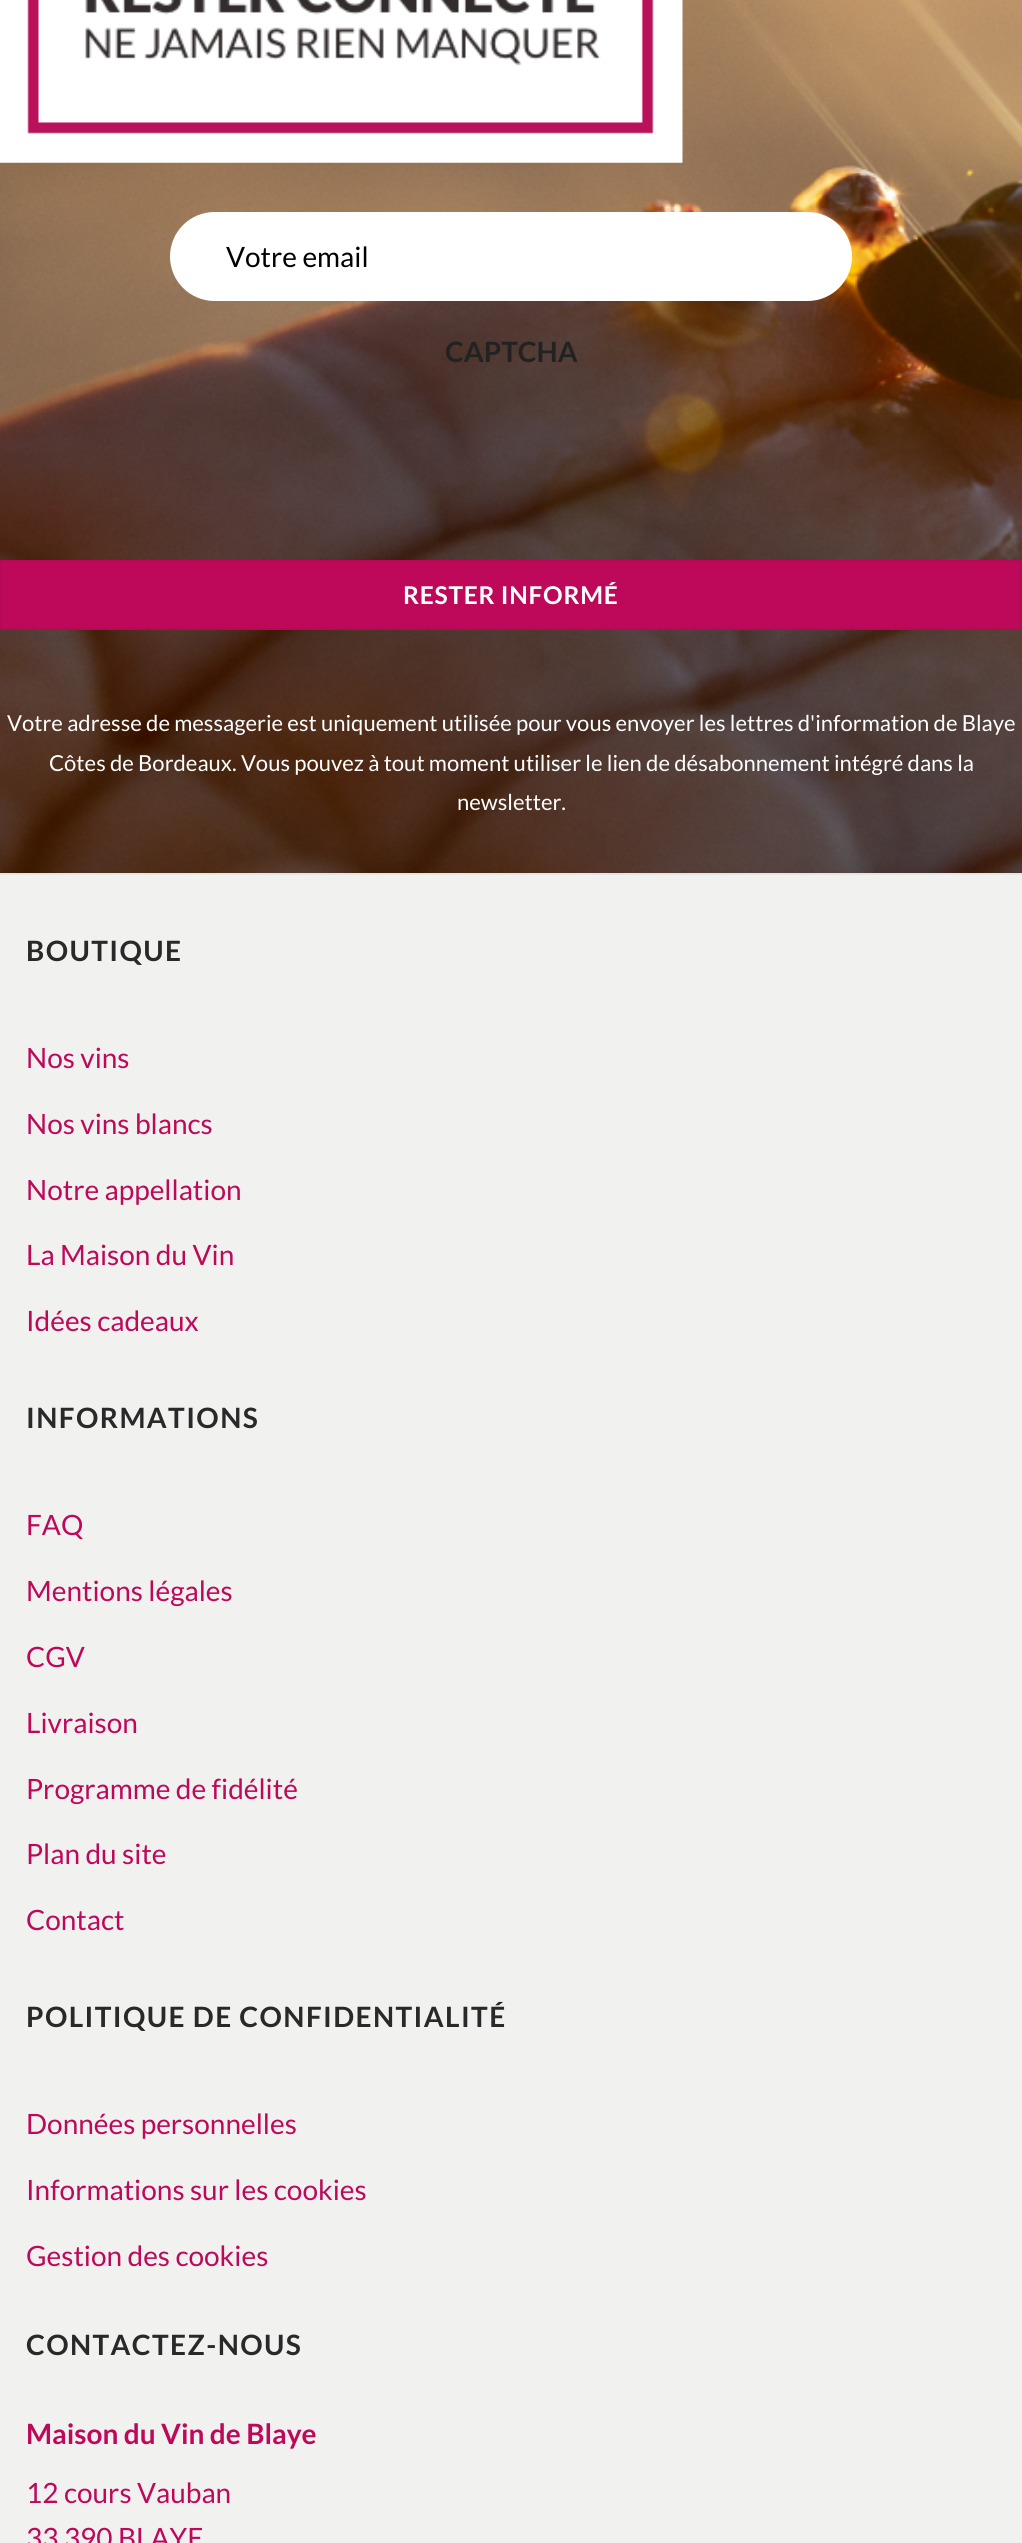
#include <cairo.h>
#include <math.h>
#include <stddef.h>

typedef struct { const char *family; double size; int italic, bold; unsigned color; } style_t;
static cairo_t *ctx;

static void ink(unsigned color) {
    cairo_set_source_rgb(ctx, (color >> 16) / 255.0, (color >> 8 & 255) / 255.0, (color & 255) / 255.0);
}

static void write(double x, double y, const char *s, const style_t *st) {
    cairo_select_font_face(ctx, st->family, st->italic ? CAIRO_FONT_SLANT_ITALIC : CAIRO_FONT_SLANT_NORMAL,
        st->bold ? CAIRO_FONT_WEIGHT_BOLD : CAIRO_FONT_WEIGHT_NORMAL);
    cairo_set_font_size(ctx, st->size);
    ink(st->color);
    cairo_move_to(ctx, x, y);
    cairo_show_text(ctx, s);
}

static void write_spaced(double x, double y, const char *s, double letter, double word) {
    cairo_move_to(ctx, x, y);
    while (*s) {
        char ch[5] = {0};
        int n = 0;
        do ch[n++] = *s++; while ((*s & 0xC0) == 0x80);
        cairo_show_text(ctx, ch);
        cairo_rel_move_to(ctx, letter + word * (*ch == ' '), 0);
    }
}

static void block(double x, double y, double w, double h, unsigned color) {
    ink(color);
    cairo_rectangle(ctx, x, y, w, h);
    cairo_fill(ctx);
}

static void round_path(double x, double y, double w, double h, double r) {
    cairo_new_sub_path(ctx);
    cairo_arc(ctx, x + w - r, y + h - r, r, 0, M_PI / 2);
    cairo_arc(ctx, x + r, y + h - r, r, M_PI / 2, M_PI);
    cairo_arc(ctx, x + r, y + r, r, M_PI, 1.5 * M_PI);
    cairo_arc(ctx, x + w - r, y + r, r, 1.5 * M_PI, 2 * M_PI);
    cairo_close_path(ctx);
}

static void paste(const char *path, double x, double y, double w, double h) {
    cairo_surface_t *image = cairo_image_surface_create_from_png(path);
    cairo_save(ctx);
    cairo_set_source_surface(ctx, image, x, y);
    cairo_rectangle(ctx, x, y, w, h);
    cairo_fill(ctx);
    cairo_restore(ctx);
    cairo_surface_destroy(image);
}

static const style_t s1 = {"Lato", 28, 0, 0, 0x000000};
static const style_t s2 = {"Lato", 28, 0, 1, 0x222222};
static const style_t s3 = {"Lato", 22.05, 0, 0, 0xffffff};
static const style_t s4 = {"Lato", 28, 0, 0, 0xbe0859};
static const style_t s5 = {"Lato", 28, 0, 1, 0xbe0859};

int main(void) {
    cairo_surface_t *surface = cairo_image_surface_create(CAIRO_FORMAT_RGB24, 1022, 2543);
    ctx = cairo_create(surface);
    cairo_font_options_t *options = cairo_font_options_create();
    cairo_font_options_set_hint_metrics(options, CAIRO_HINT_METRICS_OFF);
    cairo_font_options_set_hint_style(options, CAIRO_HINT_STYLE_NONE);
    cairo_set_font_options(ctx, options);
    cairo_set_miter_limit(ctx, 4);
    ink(0xffffff);
    cairo_paint(ctx);
    paste("pic1.png", 0, 0, 1022, 873);
    paste("pic2.png", 0, 0, 683, 163);
    ink(0xffffff);
    round_path(170, 212, 682, 89, 44.5);
    cairo_fill(ctx);
    write(226, 267, "Votre email", &s1);
    write(445, 362, "CAPTCHA", &s2);
    ink(0xbe0859);
    cairo_rectangle(ctx, 1, 561, 1020, 68);
    cairo_fill_preserve(ctx);
    ink(0xb50855);
    cairo_stroke(ctx);
    cairo_set_font_size(ctx, 24.5);
    ink(0xffffff);
    write_spaced(403, 604, "RESTER INFORMÉ", 0.75, 0);
    write(7, 731, "Votre adresse de messagerie est uniquement utilisée pour vous envoyer les lettres d'information de Blaye", &s3);
    write(49, 771, "Côtes de Bordeaux. Vous pouvez à tout moment utiliser le lien de désabonnement intégré dans la", &s3);
    write(457, 810, "newsletter.", &s3);
    block(0, 875, 1022, 1668, 0xf1f1f0);
    block(0, 873, 1022, 2, 0xe5e5e4);
    cairo_select_font_face(ctx, "Lato", CAIRO_FONT_SLANT_NORMAL, CAIRO_FONT_WEIGHT_BOLD);
    cairo_set_font_size(ctx, 28);
    ink(0x292929);
    write_spaced(26, 961, "BOUTIQUE", 1.4, 0);
    write(26, 1068, "Nos vins", &s4);
    write(26, 1134, "Nos vins blancs", &s4);
    write(26, 1200, "Notre appellation", &s4);
    write(26, 1265, "La Maison du Vin", &s4);
    write(26, 1331, "Idées cadeaux", &s4);
    cairo_select_font_face(ctx, "Lato", CAIRO_FONT_SLANT_NORMAL, CAIRO_FONT_WEIGHT_BOLD);
    ink(0x292929);
    write_spaced(26, 1428, "INFORMATIONS", 1.4, 0);
    write(26, 1535, "FAQ", &s4);
    write(26, 1601, "Mentions légales", &s4);
    write(26, 1667, "CGV", &s4);
    write(26, 1733, "Livraison", &s4);
    write(26, 1799, "Programme de fidélité", &s4);
    write(26, 1864, "Plan du site", &s4);
    write(26, 1930, "Contact", &s4);
    cairo_select_font_face(ctx, "Lato", CAIRO_FONT_SLANT_NORMAL, CAIRO_FONT_WEIGHT_BOLD);
    ink(0x292929);
    write_spaced(26, 2027, "POLITIQUE DE CONFIDENTIALITÉ", 1.4, 0);
    write(26, 2134, "Données personnelles", &s4);
    write(26, 2200, "Informations sur les cookies", &s4);
    write(26, 2266, "Gestion des cookies", &s4);
    cairo_select_font_face(ctx, "Lato", CAIRO_FONT_SLANT_NORMAL, CAIRO_FONT_WEIGHT_BOLD);
    ink(0x292929);
    write_spaced(26, 2355, "CONTACTEZ-NOUS", 1.4, 0);
    write(26, 2444, "Maison du Vin de Blaye", &s5);
    write(26, 2503, "12 cours Vauban", &s4);
    write(26, 2548, "33 390 BLAYE", &s4);
    cairo_surface_write_to_png(surface, "screenshot.png");
    cairo_font_options_destroy(options);
    cairo_destroy(ctx);
    cairo_surface_destroy(surface);
    return 0;
}
